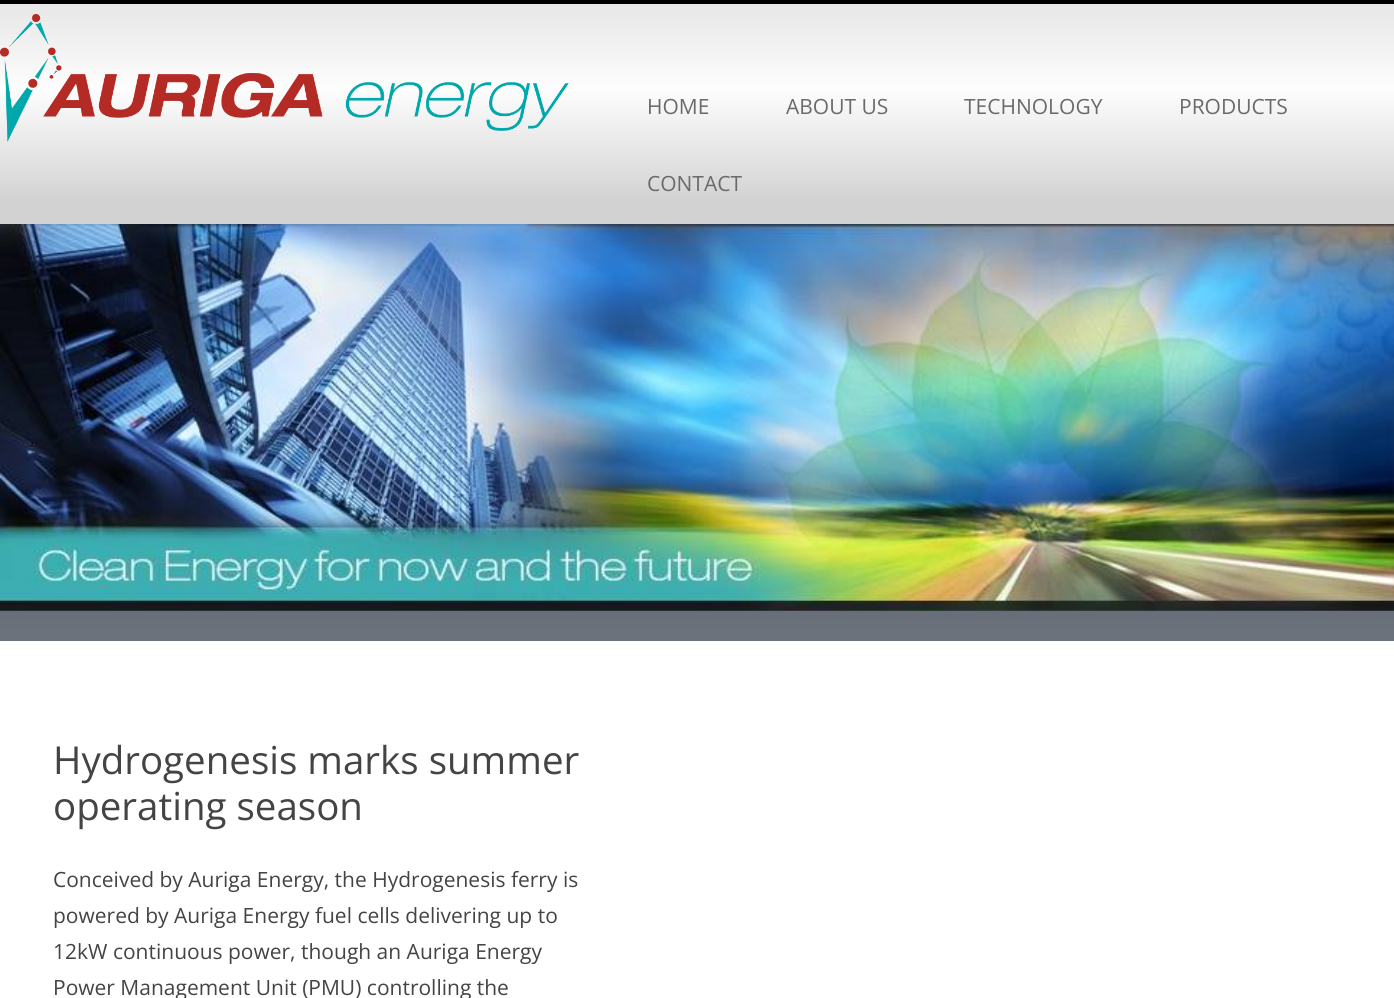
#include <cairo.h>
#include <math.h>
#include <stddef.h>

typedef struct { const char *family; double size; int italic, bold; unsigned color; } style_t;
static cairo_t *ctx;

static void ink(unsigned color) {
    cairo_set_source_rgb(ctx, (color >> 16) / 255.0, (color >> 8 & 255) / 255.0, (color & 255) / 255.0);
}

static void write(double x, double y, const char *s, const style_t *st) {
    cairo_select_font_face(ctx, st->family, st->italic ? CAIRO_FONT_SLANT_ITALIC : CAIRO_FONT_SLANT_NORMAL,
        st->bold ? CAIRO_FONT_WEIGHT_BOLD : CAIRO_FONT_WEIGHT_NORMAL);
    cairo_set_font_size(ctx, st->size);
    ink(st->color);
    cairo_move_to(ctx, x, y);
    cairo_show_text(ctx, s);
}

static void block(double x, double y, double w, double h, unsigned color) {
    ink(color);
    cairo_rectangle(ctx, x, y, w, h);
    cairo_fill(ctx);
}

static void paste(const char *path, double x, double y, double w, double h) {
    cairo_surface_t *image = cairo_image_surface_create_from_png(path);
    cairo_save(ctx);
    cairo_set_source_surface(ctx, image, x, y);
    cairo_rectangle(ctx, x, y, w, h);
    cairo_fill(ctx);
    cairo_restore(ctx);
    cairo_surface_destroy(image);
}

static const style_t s1 = {"Open Sans", 21, 0, 0, 0x6a6a6a};
static const style_t s2 = {"Open Sans", 38.5, 0, 0, 0x444444};
static const style_t s3 = {"Open Sans", 21, 0, 0, 0x444444};

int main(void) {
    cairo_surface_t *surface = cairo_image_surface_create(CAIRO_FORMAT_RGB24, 1394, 998);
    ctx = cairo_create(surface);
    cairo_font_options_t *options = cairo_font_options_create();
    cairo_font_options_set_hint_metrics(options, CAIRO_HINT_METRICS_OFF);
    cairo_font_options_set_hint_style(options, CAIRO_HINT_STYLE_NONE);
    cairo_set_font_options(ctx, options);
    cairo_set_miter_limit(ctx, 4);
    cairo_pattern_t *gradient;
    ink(0xffffff);
    cairo_paint(ctx);
    gradient = cairo_pattern_create_linear(697, 0, 697, 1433);
    cairo_pattern_add_color_stop_rgba(gradient, 0.04, 0.318, 0.341, 0.396, 1);
    cairo_pattern_add_color_stop_rgba(gradient, 0.18, 0.125, 0.153, 0.216, 1);
    cairo_pattern_add_color_stop_rgba(gradient, 0.44, 0.42, 0.447, 0.486, 1);
    cairo_pattern_add_color_stop_rgba(gradient, 0.65, 0.42, 0.447, 0.486, 1);
    cairo_pattern_add_color_stop_rgba(gradient, 0.96, 0.051, 0.059, 0.055, 1);
    cairo_set_source(ctx, gradient);
    cairo_pattern_destroy(gradient);
    cairo_rectangle(ctx, 0, 610, 1394, 31);
    cairo_fill(ctx);
    gradient = cairo_pattern_create_linear(697, 3.5, 697, 224);
    cairo_pattern_add_color_stop_rgba(gradient, 0.04, 0.914, 0.914, 0.914, 1);
    cairo_pattern_add_color_stop_rgba(gradient, 0.39, 0.992, 0.992, 0.992, 1);
    cairo_pattern_add_color_stop_rgba(gradient, 0.9, 0.824, 0.824, 0.824, 1);
    cairo_set_source(ctx, gradient);
    cairo_pattern_destroy(gradient);
    cairo_rectangle(ctx, 0, 4, 1394, 220);
    cairo_fill(ctx);
    block(0, 0, 1394, 4, 0x000000);
    paste("pic1.png", 0, 14, 569, 128);
    write(647, 114, "HOME", &s1);
    write(786, 114, "ABOUT US", &s1);
    write(964, 114, "TECHNOLOGY", &s1);
    write(1179, 114, "PRODUCTS", &s1);
    write(647, 191, "CONTACT", &s1);
    paste("pic2.png", 0, 224, 1394, 387);
    write(53, 774, "Hydrogenesis marks summer", &s2);
    write(53, 820, "operating season", &s2);
    write(53, 887, "Conceived by Auriga Energy, the Hydrogenesis ferry is", &s3);
    write(53, 923, "powered by Auriga Energy fuel cells delivering up to", &s3);
    write(53, 959, "12kW continuous power, though an Auriga Energy", &s3);
    write(53, 995, "Power Management Unit (PMU) controlling the", &s3);
    cairo_surface_write_to_png(surface, "screenshot.png");
    cairo_font_options_destroy(options);
    cairo_destroy(ctx);
    cairo_surface_destroy(surface);
    return 0;
}
